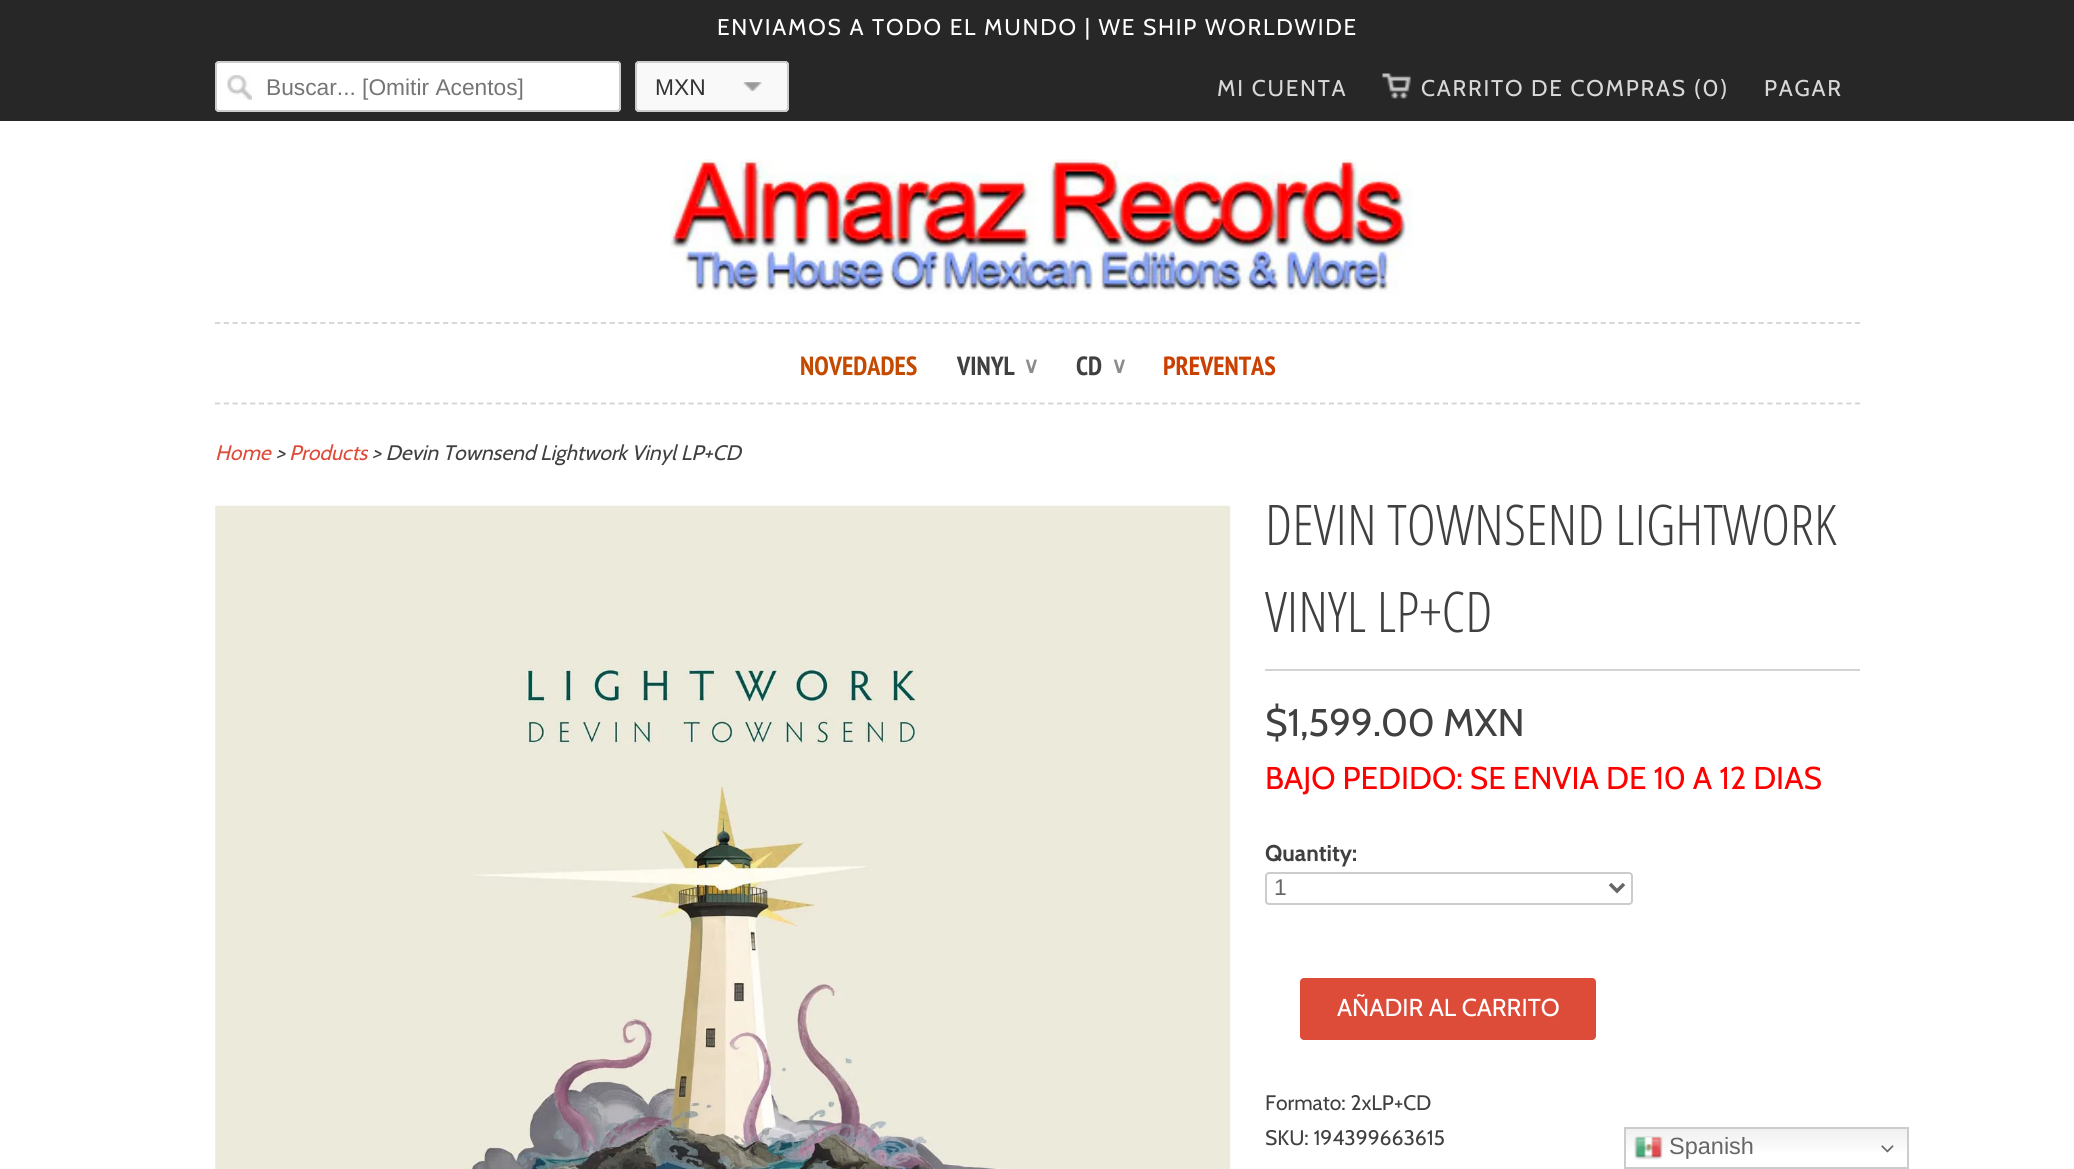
#include <cairo.h>
#include <math.h>
#include <stddef.h>

typedef struct { const char *family; double size; int italic, bold; unsigned color; } style_t;
static cairo_t *ctx;

static void ink(unsigned color) {
    cairo_set_source_rgb(ctx, (color >> 16) / 255.0, (color >> 8 & 255) / 255.0, (color & 255) / 255.0);
}

static void write(double x, double y, const char *s, const style_t *st) {
    cairo_select_font_face(ctx, st->family, st->italic ? CAIRO_FONT_SLANT_ITALIC : CAIRO_FONT_SLANT_NORMAL,
        st->bold ? CAIRO_FONT_WEIGHT_BOLD : CAIRO_FONT_WEIGHT_NORMAL);
    cairo_set_font_size(ctx, st->size);
    ink(st->color);
    cairo_move_to(ctx, x, y);
    cairo_show_text(ctx, s);
}

static void write_spaced(double x, double y, const char *s, double letter, double word) {
    cairo_move_to(ctx, x, y);
    while (*s) {
        char ch[5] = {0};
        int n = 0;
        do ch[n++] = *s++; while ((*s & 0xC0) == 0x80);
        cairo_show_text(ctx, ch);
        cairo_rel_move_to(ctx, letter + word * (*ch == ' '), 0);
    }
}

static void block(double x, double y, double w, double h, unsigned color) {
    ink(color);
    cairo_rectangle(ctx, x, y, w, h);
    cairo_fill(ctx);
}

static void round_path(double x, double y, double w, double h, double r) {
    cairo_new_sub_path(ctx);
    cairo_arc(ctx, x + w - r, y + h - r, r, 0, M_PI / 2);
    cairo_arc(ctx, x + r, y + h - r, r, M_PI / 2, M_PI);
    cairo_arc(ctx, x + r, y + r, r, M_PI, 1.5 * M_PI);
    cairo_arc(ctx, x + w - r, y + r, r, 1.5 * M_PI, 2 * M_PI);
    cairo_close_path(ctx);
}

static void paste(const char *path, double x, double y, double w, double h) {
    cairo_surface_t *image = cairo_image_surface_create_from_png(path);
    cairo_save(ctx);
    cairo_set_source_surface(ctx, image, x, y);
    cairo_rectangle(ctx, x, y, w, h);
    cairo_fill(ctx);
    cairo_restore(ctx);
    cairo_surface_destroy(image);
}

static const style_t s1 = {"Liberation Sans", 22.75, 0, 0, 0x757575};
static const style_t s2 = {"Liberation Sans", 22.75, 0, 0, 0x333333};
static const style_t s3 = {"PT Sans Narrow", 26.25, 0, 1, 0xc44a00};
static const style_t s4 = {"PT Sans Narrow", 26.25, 0, 1, 0x404040};
static const style_t s5 = {"DejaVu Sans", 22, 0, 1, 0x8c8c8c};
static const style_t s6 = {"PT Sans Narrow", 26.25, 0, 1, 0xc94000};
static const style_t s7 = {"Cabin", 21, 1, 0, 0xdd4b39};
static const style_t s8 = {"Cabin", 21, 1, 0, 0x404040};
static const style_t s9 = {"Open Sans Condensed Light", 56, 0, 0, 0x404040};
static const style_t s10 = {"Cabin", 38.5, 0, 0, 0x404040};
static const style_t s11 = {"Cabin", 31.5, 0, 0, 0xff0000};
static const style_t s12 = {"Cabin", 22.75, 0, 1, 0x404040};
static const style_t s13 = {"Liberation Sans", 22.75, 0, 0, 0x666666};
static const style_t s14 = {"Cabin", 24.5, 0, 0, 0xffffff};
static const style_t s15 = {"Cabin", 21, 0, 0, 0x404040};
static const style_t s16 = {"Liberation Sans", 23.5, 0, 0, 0x666666};

int main(void) {
    cairo_surface_t *surface = cairo_image_surface_create(CAIRO_FORMAT_RGB24, 2074, 1169);
    ctx = cairo_create(surface);
    cairo_font_options_t *options = cairo_font_options_create();
    cairo_font_options_set_hint_metrics(options, CAIRO_HINT_METRICS_OFF);
    cairo_font_options_set_hint_style(options, CAIRO_HINT_STYLE_NONE);
    cairo_set_font_options(ctx, options);
    cairo_set_miter_limit(ctx, 4);
    cairo_pattern_t *gradient;
    ink(0xffffff);
    cairo_paint(ctx);
    block(0, 0, 2074, 121, 0x272727);
    cairo_select_font_face(ctx, "Cabin", CAIRO_FONT_SLANT_NORMAL, CAIRO_FONT_WEIGHT_NORMAL);
    cairo_set_font_size(ctx, 22.75);
    ink(0xffffff);
    write_spaced(717, 35, "ENVIAMOS A TODO EL MUNDO | WE SHIP WORLDWIDE", 1.75, 0);
    round_path(215, 61, 406, 51, 4);
    cairo_fill(ctx);
    paste("pic1.png", 227, 75, 25, 25);
    round_path(216, 62, 404, 49, 3);
    ink(0xcccccc);
    cairo_stroke(ctx);
    write(266, 95, "Buscar... [Omitir Acentos]", &s1);
    ink(0xf9f9f9);
    round_path(635, 61, 154, 51, 4);
    cairo_fill(ctx);
    paste("pic2.png", 743, 82, 19, 9);
    round_path(636, 62, 152, 49, 3);
    ink(0xcccccc);
    cairo_stroke(ctx);
    write(655, 95, "MXN", &s2);
    cairo_select_font_face(ctx, "Cabin", CAIRO_FONT_SLANT_NORMAL, CAIRO_FONT_WEIGHT_NORMAL);
    ink(0xd8d8d8);
    write_spaced(1217, 96, "MI CUENTA", 1.75, 0);
    paste("pic3.png", 1382, 73, 29, 26);
    write_spaced(1421, 96, "CARRITO DE COMPRAS (0)", 1.75, 0);
    write_spaced(1764, 96, "PAGAR", 1.75, 0);
    paste("pic4.png", 670, 159, 743, 135);
    cairo_new_path(ctx);
    cairo_move_to(ctx, 215, 323);
    cairo_line_to(ctx, 1860, 323);
    ink(0xd3d3d3);
    cairo_set_line_width(ctx, 1.8);
    cairo_set_dash(ctx, (double[]){5.25, 3.52}, 2, 0);
    cairo_stroke(ctx);
    cairo_new_path(ctx);
    cairo_move_to(ctx, 215, 403.5);
    cairo_line_to(ctx, 1860, 403.5);
    cairo_stroke(ctx);
    write(800, 375, "NOVEDADES", &s3);
    write(957, 375, "VINYL", &s4);
    write(1023, 373, "∨", &s5);
    write(1076, 375, "CD", &s4);
    write(1111, 373, "∨", &s5);
    write(1163, 375, "PREVENTAS", &s6);
    write(215, 460, "Home", &s7);
    write(276, 460, ">", &s8);
    write(289, 460, "Products", &s7);
    write(372, 460, "> Devin Townsend Lightwork Vinyl LP+CD", &s8);
    paste("pic5.png", 215, 505, 1016, 664);
    block(1265, 669, 595, 2, 0xd3d3d3);
    write(1265, 545, "DEVIN TOWNSEND LIGHTWORK", &s9);
    write(1265, 632, "VINYL LP+CD", &s9);
    write(1265, 736, "$1,599.00 MXN", &s10);
    write(1265, 789, "BAJO PEDIDO: SE ENVIA DE 10 A 12 DIAS", &s11);
    write(1265, 861, "Quantity:", &s12);
    round_path(1266, 873, 366, 31, 3);
    ink(0xcccccc);
    cairo_set_line_width(ctx, 2);
    cairo_set_dash(ctx, NULL, 0, 0);
    cairo_stroke(ctx);
    cairo_new_path(ctx);
    cairo_move_to(ctx, 1610, 884);
    cairo_line_to(ctx, 1617, 891);
    cairo_line_to(ctx, 1624, 884);
    ink(0x666666);
    cairo_set_line_width(ctx, 3.5);
    cairo_stroke(ctx);
    write(1274, 895, "1", &s13);
    ink(0xdd4b39);
    round_path(1300, 978, 296, 62, 4);
    cairo_fill(ctx);
    write(1337, 1016, "AÑADIR AL CARRITO", &s14);
    write(1265, 1110, "Formato: 2xLP+CD", &s15);
    write(1265, 1145, "SKU: 194399663615", &s15);
    gradient = cairo_pattern_create_linear(1767, 1127, 1767, 1169);
    cairo_pattern_add_color_stop_rgba(gradient, 0, 0.937, 0.937, 0.937, 1);
    cairo_pattern_add_color_stop_rgba(gradient, 0.7, 1, 1, 1, 1);
    cairo_set_source(ctx, gradient);
    cairo_pattern_destroy(gradient);
    cairo_rectangle(ctx, 1626, 1129, 281, 23);
    cairo_fill(ctx);
    cairo_rectangle(ctx, 1625, 1128, 283, 40);
    ink(0xcccccc);
    cairo_set_line_width(ctx, 2);
    cairo_stroke(ctx);
    paste("pic6.png", 1634, 1136, 29, 24);
    write(1669, 1154, "Spanish", &s16);
    paste("pic7.png", 1881, 1145, 13, 8);
    cairo_surface_write_to_png(surface, "screenshot.png");
    cairo_font_options_destroy(options);
    cairo_destroy(ctx);
    cairo_surface_destroy(surface);
    return 0;
}
